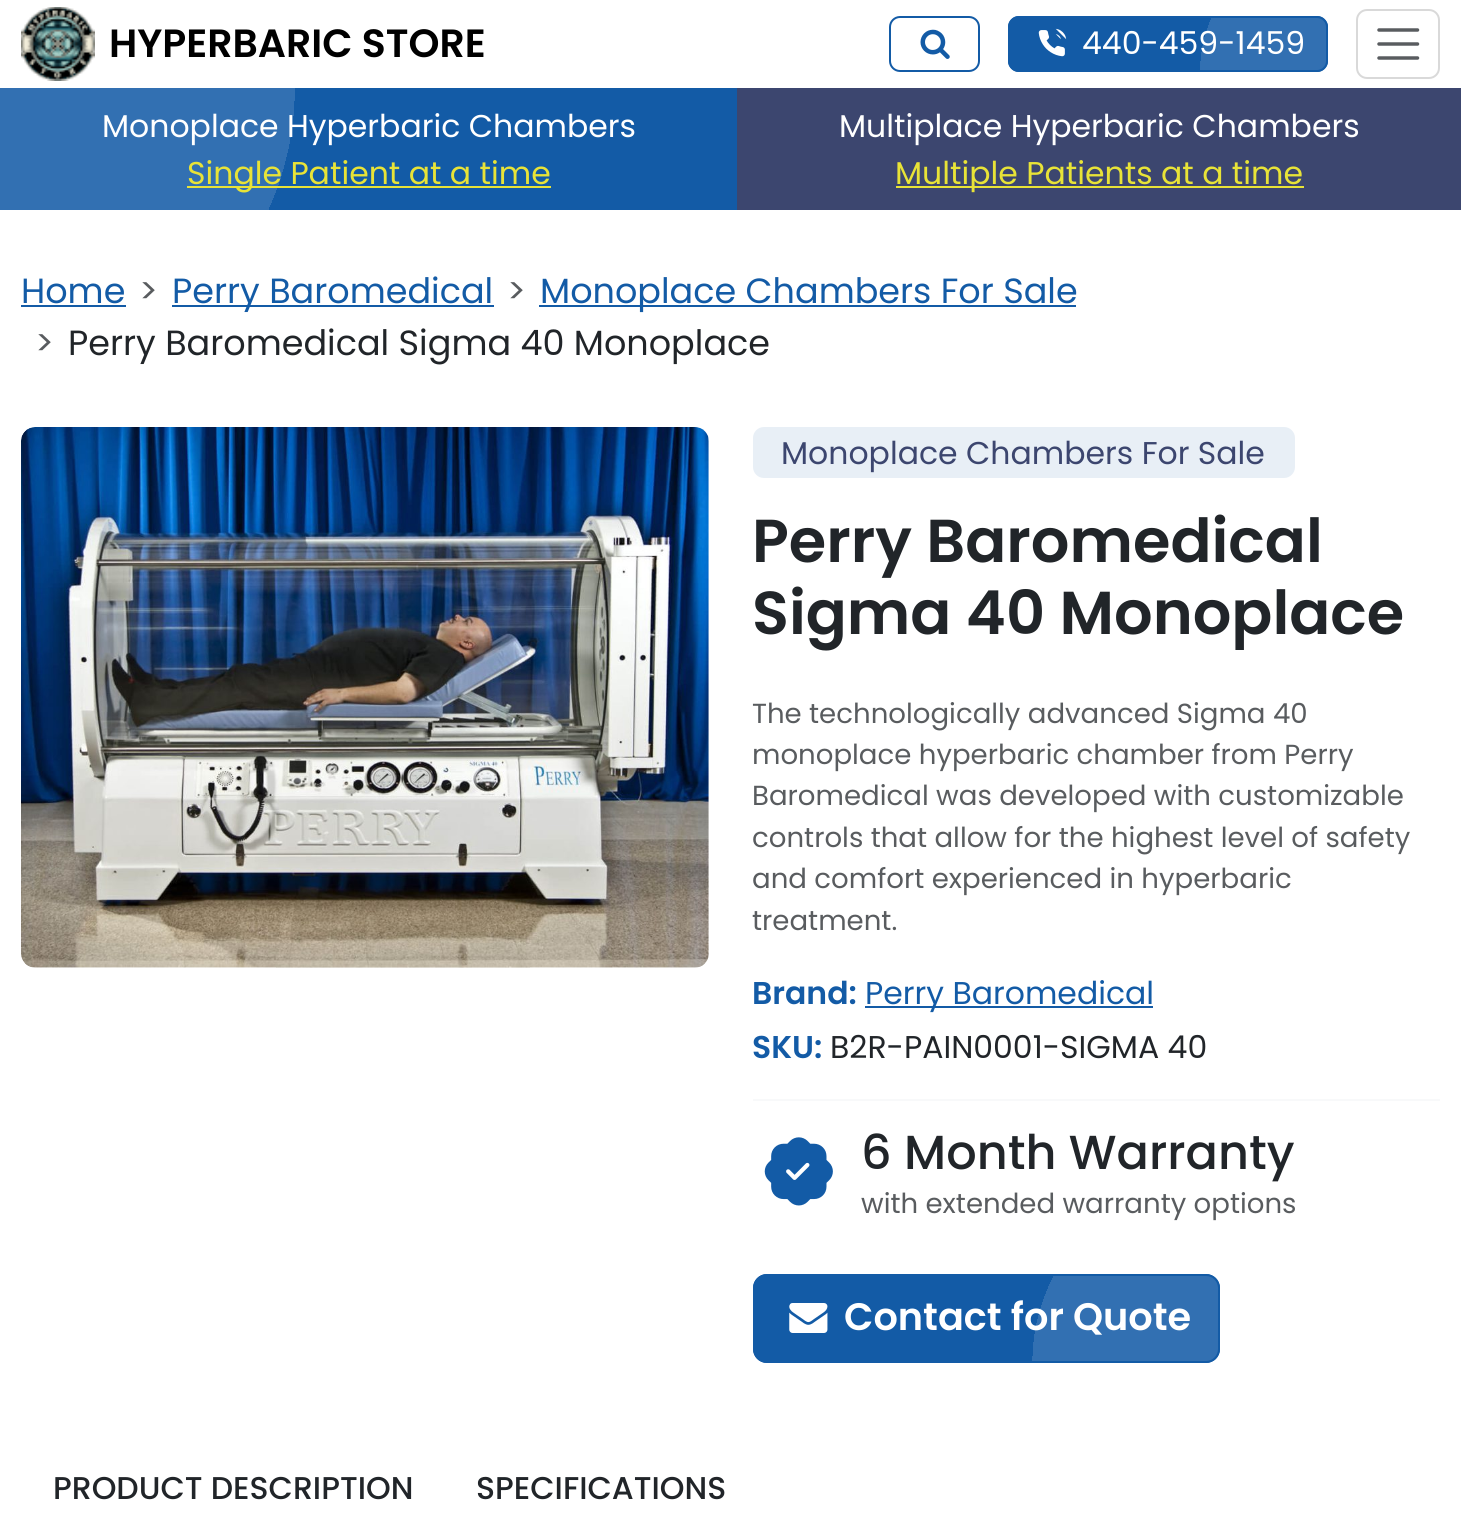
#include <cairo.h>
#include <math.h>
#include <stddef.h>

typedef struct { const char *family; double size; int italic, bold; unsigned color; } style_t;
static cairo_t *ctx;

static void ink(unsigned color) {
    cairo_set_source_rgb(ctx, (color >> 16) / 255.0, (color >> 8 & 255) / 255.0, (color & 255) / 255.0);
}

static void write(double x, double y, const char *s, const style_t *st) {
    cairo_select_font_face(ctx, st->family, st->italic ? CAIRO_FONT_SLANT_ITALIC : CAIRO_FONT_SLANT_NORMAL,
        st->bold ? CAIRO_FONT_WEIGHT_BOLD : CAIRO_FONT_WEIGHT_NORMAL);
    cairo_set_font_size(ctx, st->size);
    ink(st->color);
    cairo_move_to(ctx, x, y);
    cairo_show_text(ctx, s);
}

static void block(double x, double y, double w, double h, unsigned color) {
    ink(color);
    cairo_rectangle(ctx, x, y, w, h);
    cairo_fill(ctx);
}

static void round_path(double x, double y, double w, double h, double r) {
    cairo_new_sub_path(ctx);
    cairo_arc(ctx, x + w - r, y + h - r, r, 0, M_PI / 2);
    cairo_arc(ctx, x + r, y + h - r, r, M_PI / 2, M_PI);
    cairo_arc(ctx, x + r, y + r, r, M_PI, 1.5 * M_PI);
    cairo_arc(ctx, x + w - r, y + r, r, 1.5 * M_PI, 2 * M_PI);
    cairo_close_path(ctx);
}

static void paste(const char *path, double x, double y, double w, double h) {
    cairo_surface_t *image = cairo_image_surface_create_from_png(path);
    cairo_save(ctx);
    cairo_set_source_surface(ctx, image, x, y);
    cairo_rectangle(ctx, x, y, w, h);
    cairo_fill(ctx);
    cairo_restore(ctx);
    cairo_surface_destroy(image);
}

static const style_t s1 = {"Poppins SemiBold", 39.4, 0, 0, 0x000000};
static const style_t s2 = {"Poppins", 31.5, 0, 0, 0xffffff};
static const style_t s3 = {"Poppins", 31.5, 0, 0, 0xe8e337};
static const style_t s4 = {"Poppins", 35, 0, 0, 0x135ba6};
static const style_t s5 = {"Poppins", 35, 0, 0, 0x595c5f};
static const style_t s6 = {"Poppins", 35, 0, 0, 0x212529};
static const style_t s7 = {"Poppins", 31.5, 0, 0, 0x3c466f};
static const style_t s8 = {"Poppins SemiBold", 60.6, 0, 0, 0x212529};
static const style_t s9 = {"Poppins", 27.6, 0, 0, 0x595c5f};
static const style_t s10 = {"Poppins SemiBold", 31.5, 0, 0, 0x135ba6};
static const style_t s11 = {"Poppins", 31.5, 0, 0, 0x135ba6};
static const style_t s12 = {"Poppins", 31.5, 0, 0, 0x212529};
static const style_t s13 = {"Poppins Medium", 47.75, 0, 0, 0x212529};
static const style_t s14 = {"Poppins SemiBold", 38.25, 0, 0, 0xffffff};
static const style_t s15 = {"Poppins Medium", 31.5, 0, 0, 0x212529};

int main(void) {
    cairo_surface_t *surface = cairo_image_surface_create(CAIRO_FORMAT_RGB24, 1461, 1526);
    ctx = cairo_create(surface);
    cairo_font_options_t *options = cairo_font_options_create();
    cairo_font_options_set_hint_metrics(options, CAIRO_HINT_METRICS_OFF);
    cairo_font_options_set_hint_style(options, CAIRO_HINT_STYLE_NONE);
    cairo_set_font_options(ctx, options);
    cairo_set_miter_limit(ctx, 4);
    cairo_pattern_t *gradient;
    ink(0xffffff);
    cairo_paint(ctx);
    paste("pic1.png", 21, 7, 74, 74);
    write(109, 57, "HYPERBARIC STORE", &s1);
    round_path(890, 17, 89, 54, 10);
    ink(0x135ba6);
    cairo_stroke(ctx);
    paste("pic2.png", 920, 29, 30, 30);
    round_path(1008, 16, 320, 56, 11);
    cairo_fill(ctx);
    cairo_save(ctx);
    round_path(1008, 16, 320, 56, 11);
    cairo_clip(ctx);
    gradient = cairo_pattern_create_radial(1327, 70, 0, 1327, 70, 317);
    cairo_pattern_add_color_stop_rgba(gradient, 0.4, 1, 1, 1, 0.13);
    cairo_pattern_add_color_stop_rgba(gradient, 0.4, 1, 1, 1, 0);
    cairo_set_source(ctx, gradient);
    cairo_pattern_destroy(gradient);
    cairo_rectangle(ctx, 1200, 18, 127, 52);
    cairo_fill(ctx);
    cairo_restore(ctx);
    round_path(1009, 17, 318, 54, 10);
    cairo_stroke(ctx);
    paste("pic3.png", 1038, 28, 29, 29);
    write(1082, 54, "440-459-1459", &s2);
    round_path(1357, 10, 82, 68, 10);
    ink(0xd9d9d9);
    cairo_stroke(ctx);
    cairo_new_path(ctx);
    cairo_move_to(ctx, 1379, 30);
    cairo_line_to(ctx, 1417.5, 30);
    cairo_move_to(ctx, 1379, 44);
    cairo_line_to(ctx, 1417.5, 44);
    cairo_move_to(ctx, 1379, 58);
    cairo_line_to(ctx, 1417.5, 58);
    ink(0x595c5f);
    cairo_set_line_width(ctx, 3.5);
    cairo_set_line_cap(ctx, CAIRO_LINE_CAP_ROUND);
    cairo_stroke(ctx);
    gradient = cairo_pattern_create_radial(0, 88, 0, 0, 88, 737);
    cairo_pattern_add_color_stop_rgba(gradient, 0.4, 0.196, 0.439, 0.698, 1);
    cairo_pattern_add_color_stop_rgba(gradient, 0.4, 0.075, 0.357, 0.651, 1);
    cairo_set_source(ctx, gradient);
    cairo_pattern_destroy(gradient);
    cairo_rectangle(ctx, 0, 88, 737, 122);
    cairo_fill(ctx);
    write(102, 137, "Monoplace Hyperbaric Chambers", &s2);
    block(187, 186, 364, 2, 0xe8e337);
    write(187, 184, "Single Patient at a time", &s3);
    block(737, 88, 724, 122, 0x3c466f);
    write(839, 137, "Multiplace Hyperbaric Chambers", &s2);
    block(896, 186, 408, 2, 0xe8e337);
    write(895, 184, "Multiple Patients at a time", &s3);
    write(21, 303, "Home", &s4);
    block(21, 305, 105, 2, 0x135ba6);
    write(139, 303, ">", &s5);
    block(172, 305, 322, 2, 0x135ba6);
    write(172, 303, "Perry Baromedical", &s4);
    write(507, 303, ">", &s5);
    block(539, 305, 537, 2, 0x135ba6);
    write(540, 303, "Monoplace Chambers For Sale", &s4);
    write(35, 355, ">", &s5);
    write(68, 355, "Perry Baromedical Sigma 40 Monoplace", &s6);
    paste("pic4.png", 21, 427, 688, 541);
    ink(0xe8eff6);
    round_path(754, 428, 540, 49, 10);
    cairo_fill_preserve(ctx);
    cairo_set_line_width(ctx, 2);
    cairo_set_line_cap(ctx, CAIRO_LINE_CAP_BUTT);
    cairo_stroke(ctx);
    write(781, 464, "Monoplace Chambers For Sale", &s7);
    write(752, 562, "Perry Baromedical", &s8);
    write(752, 634, "Sigma 40 Monoplace", &s8);
    write(752, 723, "The technologically advanced Sigma 40", &s9);
    write(752, 764, "monoplace hyperbaric chamber from Perry", &s9);
    write(752, 805, "Baromedical was developed with customizable", &s9);
    write(752, 847, "controls that allow for the highest level of safety", &s9);
    write(752, 888, "and comfort experienced in hyperbaric", &s9);
    write(752, 930, "treatment.", &s9);
    write(752, 1004, "Brand:", &s10);
    block(865, 1006, 288, 2, 0x135ba6);
    write(865, 1004, "Perry Baromedical", &s11);
    write(752, 1058, "SKU:", &s10);
    write(830, 1058, "B2R-PAIN0001-SIGMA 40", &s12);
    block(753, 1099, 687, 2, 0xf8f9fa);
    paste("pic5.png", 764, 1137, 69, 69);
    write(861, 1169, "6 Month Warranty", &s13);
    write(861, 1213, "with extended warranty options", &s9);
    ink(0x135ba6);
    round_path(753, 1274, 467, 89, 14);
    cairo_fill(ctx);
    cairo_save(ctx);
    round_path(753, 1274, 467, 89, 14);
    cairo_clip(ctx);
    gradient = cairo_pattern_create_radial(1218, 1362, 0, 1218, 1362, 464);
    cairo_pattern_add_color_stop_rgba(gradient, 0.4, 1, 1, 1, 0.13);
    cairo_pattern_add_color_stop_rgba(gradient, 0.4, 1, 1, 1, 0);
    cairo_set_source(ctx, gradient);
    cairo_pattern_destroy(gradient);
    cairo_rectangle(ctx, 1032, 1276, 186, 86);
    cairo_fill(ctx);
    cairo_restore(ctx);
    round_path(754, 1275, 465, 87, 13);
    cairo_stroke(ctx);
    paste("pic6.png", 789, 1303, 39, 30);
    write(844, 1330, "Contact for Quote", &s14);
    write(53, 1499, "PRODUCT DESCRIPTION", &s15);
    write(476, 1499, "SPECIFICATIONS", &s15);
    cairo_surface_write_to_png(surface, "screenshot.png");
    cairo_font_options_destroy(options);
    cairo_destroy(ctx);
    cairo_surface_destroy(surface);
    return 0;
}
